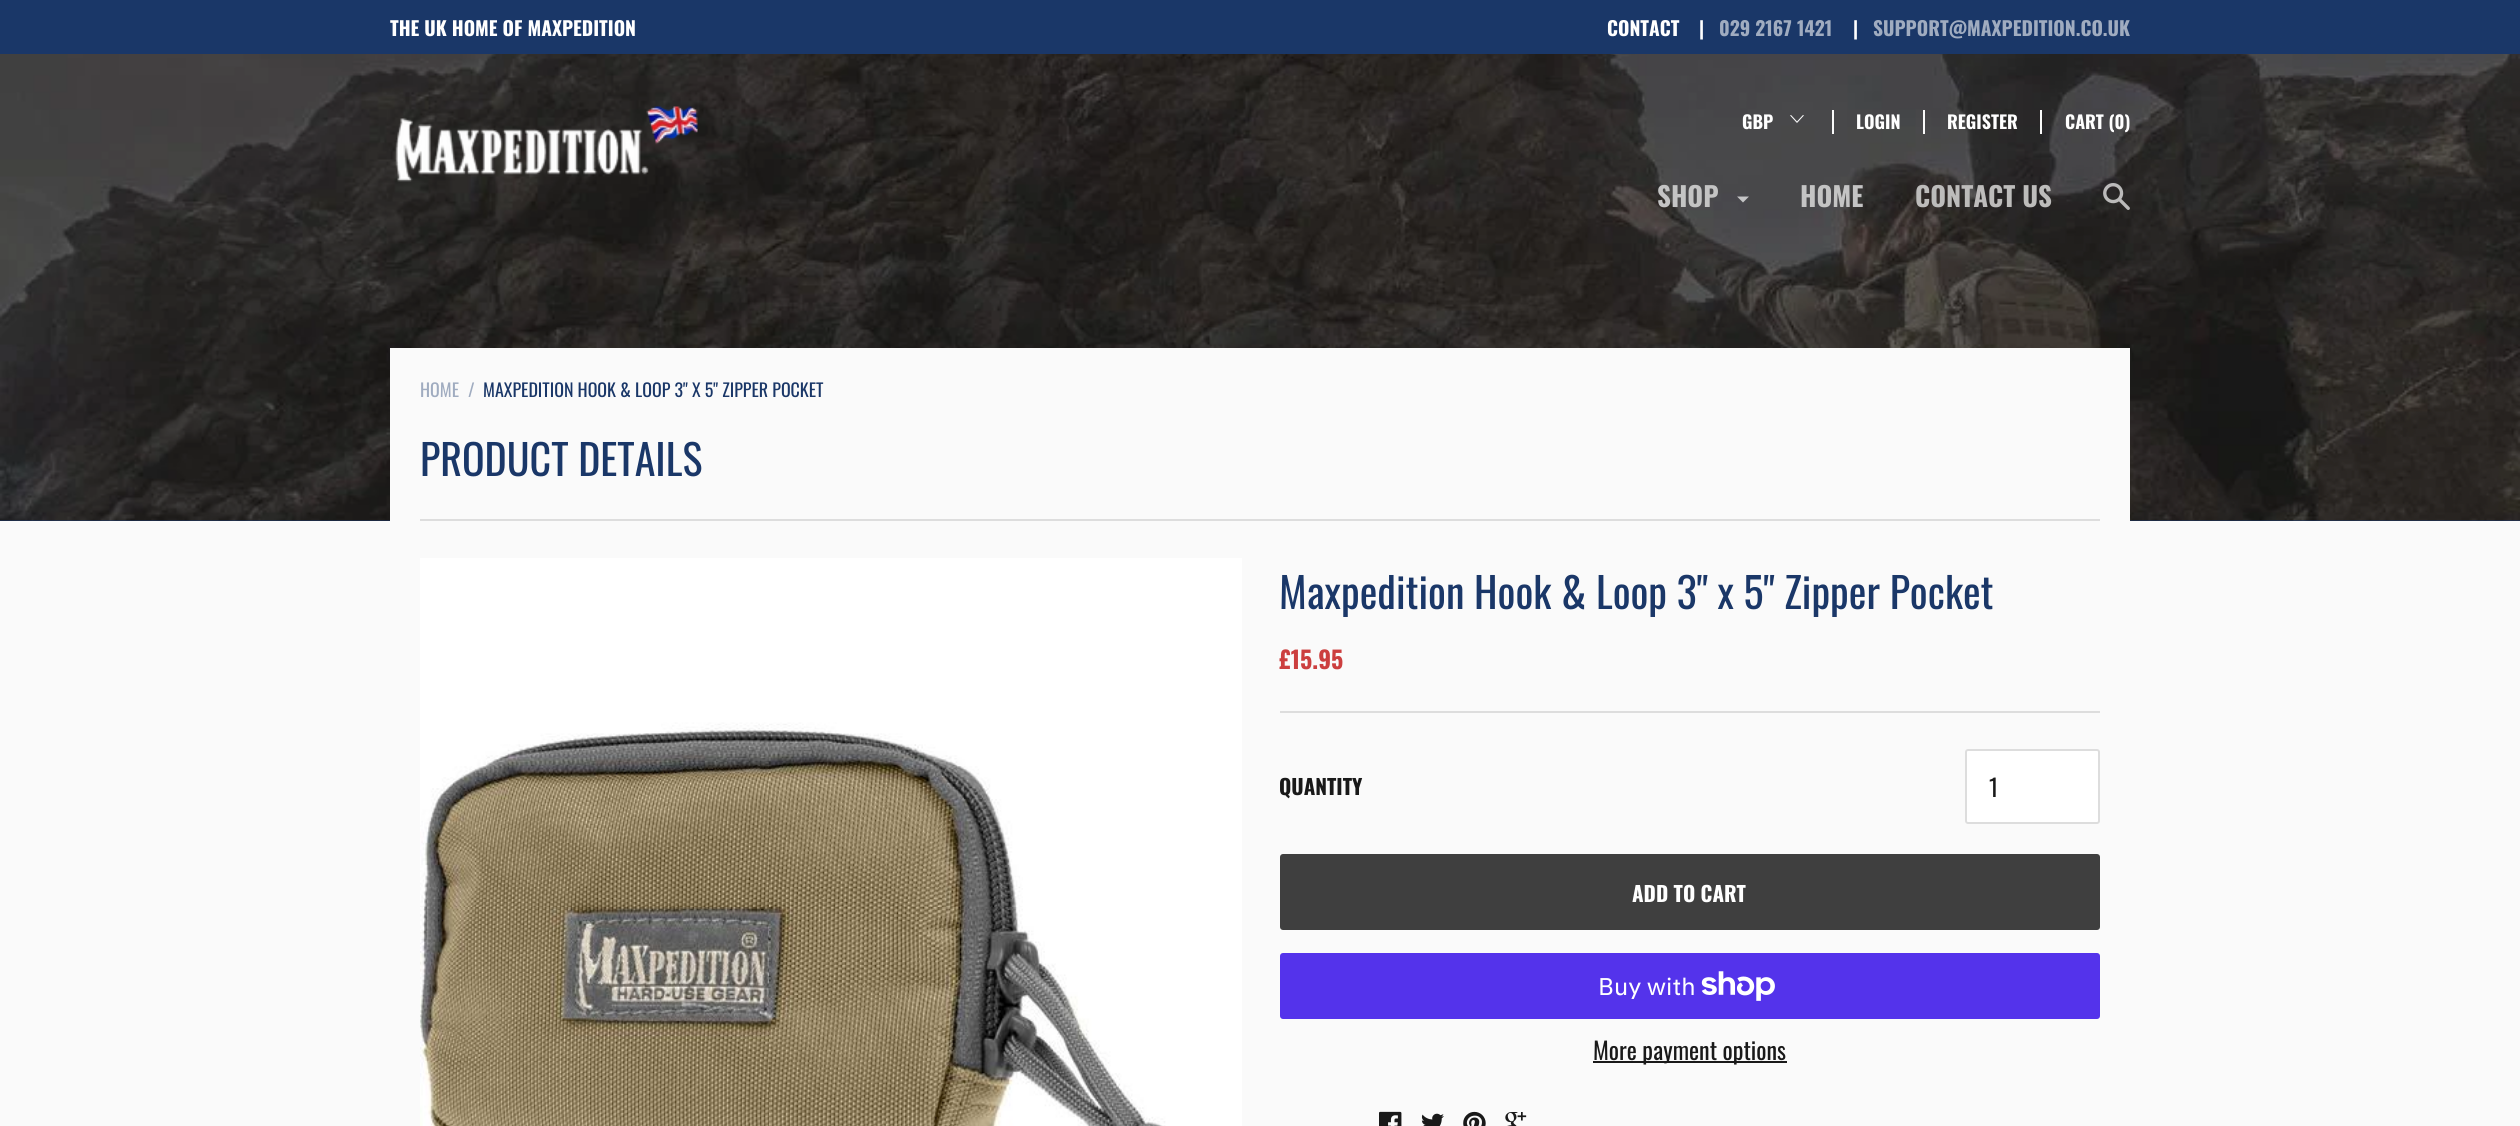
#include <cairo.h>
#include <math.h>
#include <stddef.h>

typedef struct { const char *family; double size; int italic, bold; unsigned color; } style_t;
static cairo_t *ctx;

static void ink(unsigned color) {
    cairo_set_source_rgb(ctx, (color >> 16) / 255.0, (color >> 8 & 255) / 255.0, (color & 255) / 255.0);
}

static void write(double x, double y, const char *s, const style_t *st) {
    cairo_select_font_face(ctx, st->family, st->italic ? CAIRO_FONT_SLANT_ITALIC : CAIRO_FONT_SLANT_NORMAL,
        st->bold ? CAIRO_FONT_WEIGHT_BOLD : CAIRO_FONT_WEIGHT_NORMAL);
    cairo_set_font_size(ctx, st->size);
    ink(st->color);
    cairo_move_to(ctx, x, y);
    cairo_show_text(ctx, s);
}

static void block(double x, double y, double w, double h, unsigned color) {
    ink(color);
    cairo_rectangle(ctx, x, y, w, h);
    cairo_fill(ctx);
}

static void round_path(double x, double y, double w, double h, double r) {
    cairo_new_sub_path(ctx);
    cairo_arc(ctx, x + w - r, y + h - r, r, 0, M_PI / 2);
    cairo_arc(ctx, x + r, y + h - r, r, M_PI / 2, M_PI);
    cairo_arc(ctx, x + r, y + r, r, M_PI, 1.5 * M_PI);
    cairo_arc(ctx, x + w - r, y + r, r, 1.5 * M_PI, 2 * M_PI);
    cairo_close_path(ctx);
}

static void paste(const char *path, double x, double y, double w, double h) {
    cairo_surface_t *image = cairo_image_surface_create_from_png(path);
    cairo_save(ctx);
    cairo_set_source_surface(ctx, image, x, y);
    cairo_rectangle(ctx, x, y, w, h);
    cairo_fill(ctx);
    cairo_restore(ctx);
    cairo_surface_destroy(image);
}

static const style_t s1 = {"Oswald", 19.5, 0, 1, 0xffffff};
static const style_t s2 = {"Oswald", 19.5, 0, 1, 0xa0acc0};
static const style_t s3 = {"Oswald", 18, 0, 1, 0xffffff};
static const style_t s4 = {"Oswald", 27, 0, 1, 0xc4c4c4};
static const style_t s5 = {"Oswald", 27, 0, 1, 0xbdbcbb};
static const style_t s6 = {"Oswald", 18, 0, 0, 0xa0acc0};
static const style_t s7 = {"Oswald", 18, 0, 0, 0x1a3768};
static const style_t s8 = {"Oswald", 42, 0, 0, 0x1a3768};
static const style_t s9 = {"Oswald", 24, 0, 1, 0xcc3f3f};
static const style_t s10 = {"Oswald", 21, 0, 1, 0x191919};
static const style_t s11 = {"Oswald", 24, 0, 0, 0x191919};
static const style_t s12 = {"Oswald", 21, 0, 1, 0xffffff};
static const style_t s13 = {"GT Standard", 24, 0, 0, 0xffffff};

int main(void) {
    cairo_surface_t *surface = cairo_image_surface_create(CAIRO_FORMAT_RGB24, 2520, 1126);
    ctx = cairo_create(surface);
    cairo_font_options_t *options = cairo_font_options_create();
    cairo_font_options_set_hint_metrics(options, CAIRO_HINT_METRICS_OFF);
    cairo_font_options_set_hint_style(options, CAIRO_HINT_STYLE_NONE);
    cairo_set_font_options(ctx, options);
    cairo_set_miter_limit(ctx, 4);
    ink(0xfafafa);
    cairo_paint(ctx);
    block(0, 520, 2520, 1, 0x1a3768);
    paste("pic1.png", 0, 54, 2520, 467);
    block(0, 0, 2520, 54, 0x1a3768);
    write(390, 36, "THE UK HOME OF MAXPEDITION", &s1);
    write(1607, 36, "CONTACT", &s1);
    write(1699, 36, "|", &s1);
    write(1719, 36, "029 2167 1421", &s2);
    write(1853, 36, "|", &s1);
    write(1873, 36, "SUPPORT@MAXPEDITION.CO.UK", &s2);
    paste("pic2.png", 395, 106, 303, 76);
    write(1742, 129, "GBP", &s3);
    paste("pic3.png", 1790, 115, 14, 8);
    block(1832, 110, 2, 24, 0xfafafa);
    write(1856, 129, "LOGIN", &s3);
    block(1923, 110, 2, 24, 0xfafafa);
    write(1947, 129, "REGISTER", &s3);
    block(2040, 110, 2, 24, 0xfafafa);
    write(2065, 129, "CART (0)", &s3);
    write(1657, 207, "SHOP", &s4);
    ink(0xc5c5c6);
    cairo_new_path(ctx);
    cairo_move_to(ctx, 1737, 196.5);
    cairo_line_to(ctx, 1749, 196.5);
    cairo_line_to(ctx, 1743, 202.5);
    cairo_close_path(ctx);
    cairo_fill(ctx);
    write(1800, 207, "HOME", &s4);
    write(1915, 207, "CONTACT US", &s5);
    paste("pic4.png", 2103, 183, 27, 27);
    block(390, 348, 1740, 173, 0xfafafa);
    write(420, 397, "HOME", &s6);
    write(468, 397, "/", &s6);
    write(483, 397, "MAXPEDITION HOOK & LOOP 3\" X 5\" ZIPPER POCKET", &s7);
    block(420, 519, 1680, 2, 0xdddddd);
    write(420, 476, "PRODUCT DETAILS", &s8);
    paste("pic5.png", 420, 558, 822, 568);
    block(1280, 711, 820, 2, 0xdddddd);
    write(1279, 609, "Maxpedition Hook & Loop 3\" x 5\" Zipper Pocket", &s8);
    write(1279, 669, "£15.95", &s9);
    write(1279, 795, "QUANTITY", &s10);
    ink(0xffffff);
    round_path(1966, 750, 133, 73, 2);
    cairo_fill_preserve(ctx);
    ink(0xdddddd);
    cairo_stroke(ctx);
    write(1989, 797, "1", &s11);
    ink(0x3f3f3f);
    round_path(1280, 854, 820, 76, 3);
    cairo_fill(ctx);
    write(1632, 902, "ADD TO CART", &s12);
    ink(0x5433eb);
    round_path(1280, 953, 820, 66, 3);
    cairo_fill(ctx);
    write(1598, 995, "Buy with", &s13);
    paste("pic6.png", 1701, 971, 74, 30);
    block(1593, 1061, 194, 2, 0x191919);
    write(1593, 1060, "More payment options", &s11);
    paste("pic7.png", 1379, 1111, 23, 15);
    paste("pic8.png", 1421, 1113, 23, 13);
    paste("pic9.png", 1463, 1111, 23, 15);
    paste("pic10.png", 1505, 1112, 22, 14);
    cairo_surface_write_to_png(surface, "screenshot.png");
    cairo_font_options_destroy(options);
    cairo_destroy(ctx);
    cairo_surface_destroy(surface);
    return 0;
}
